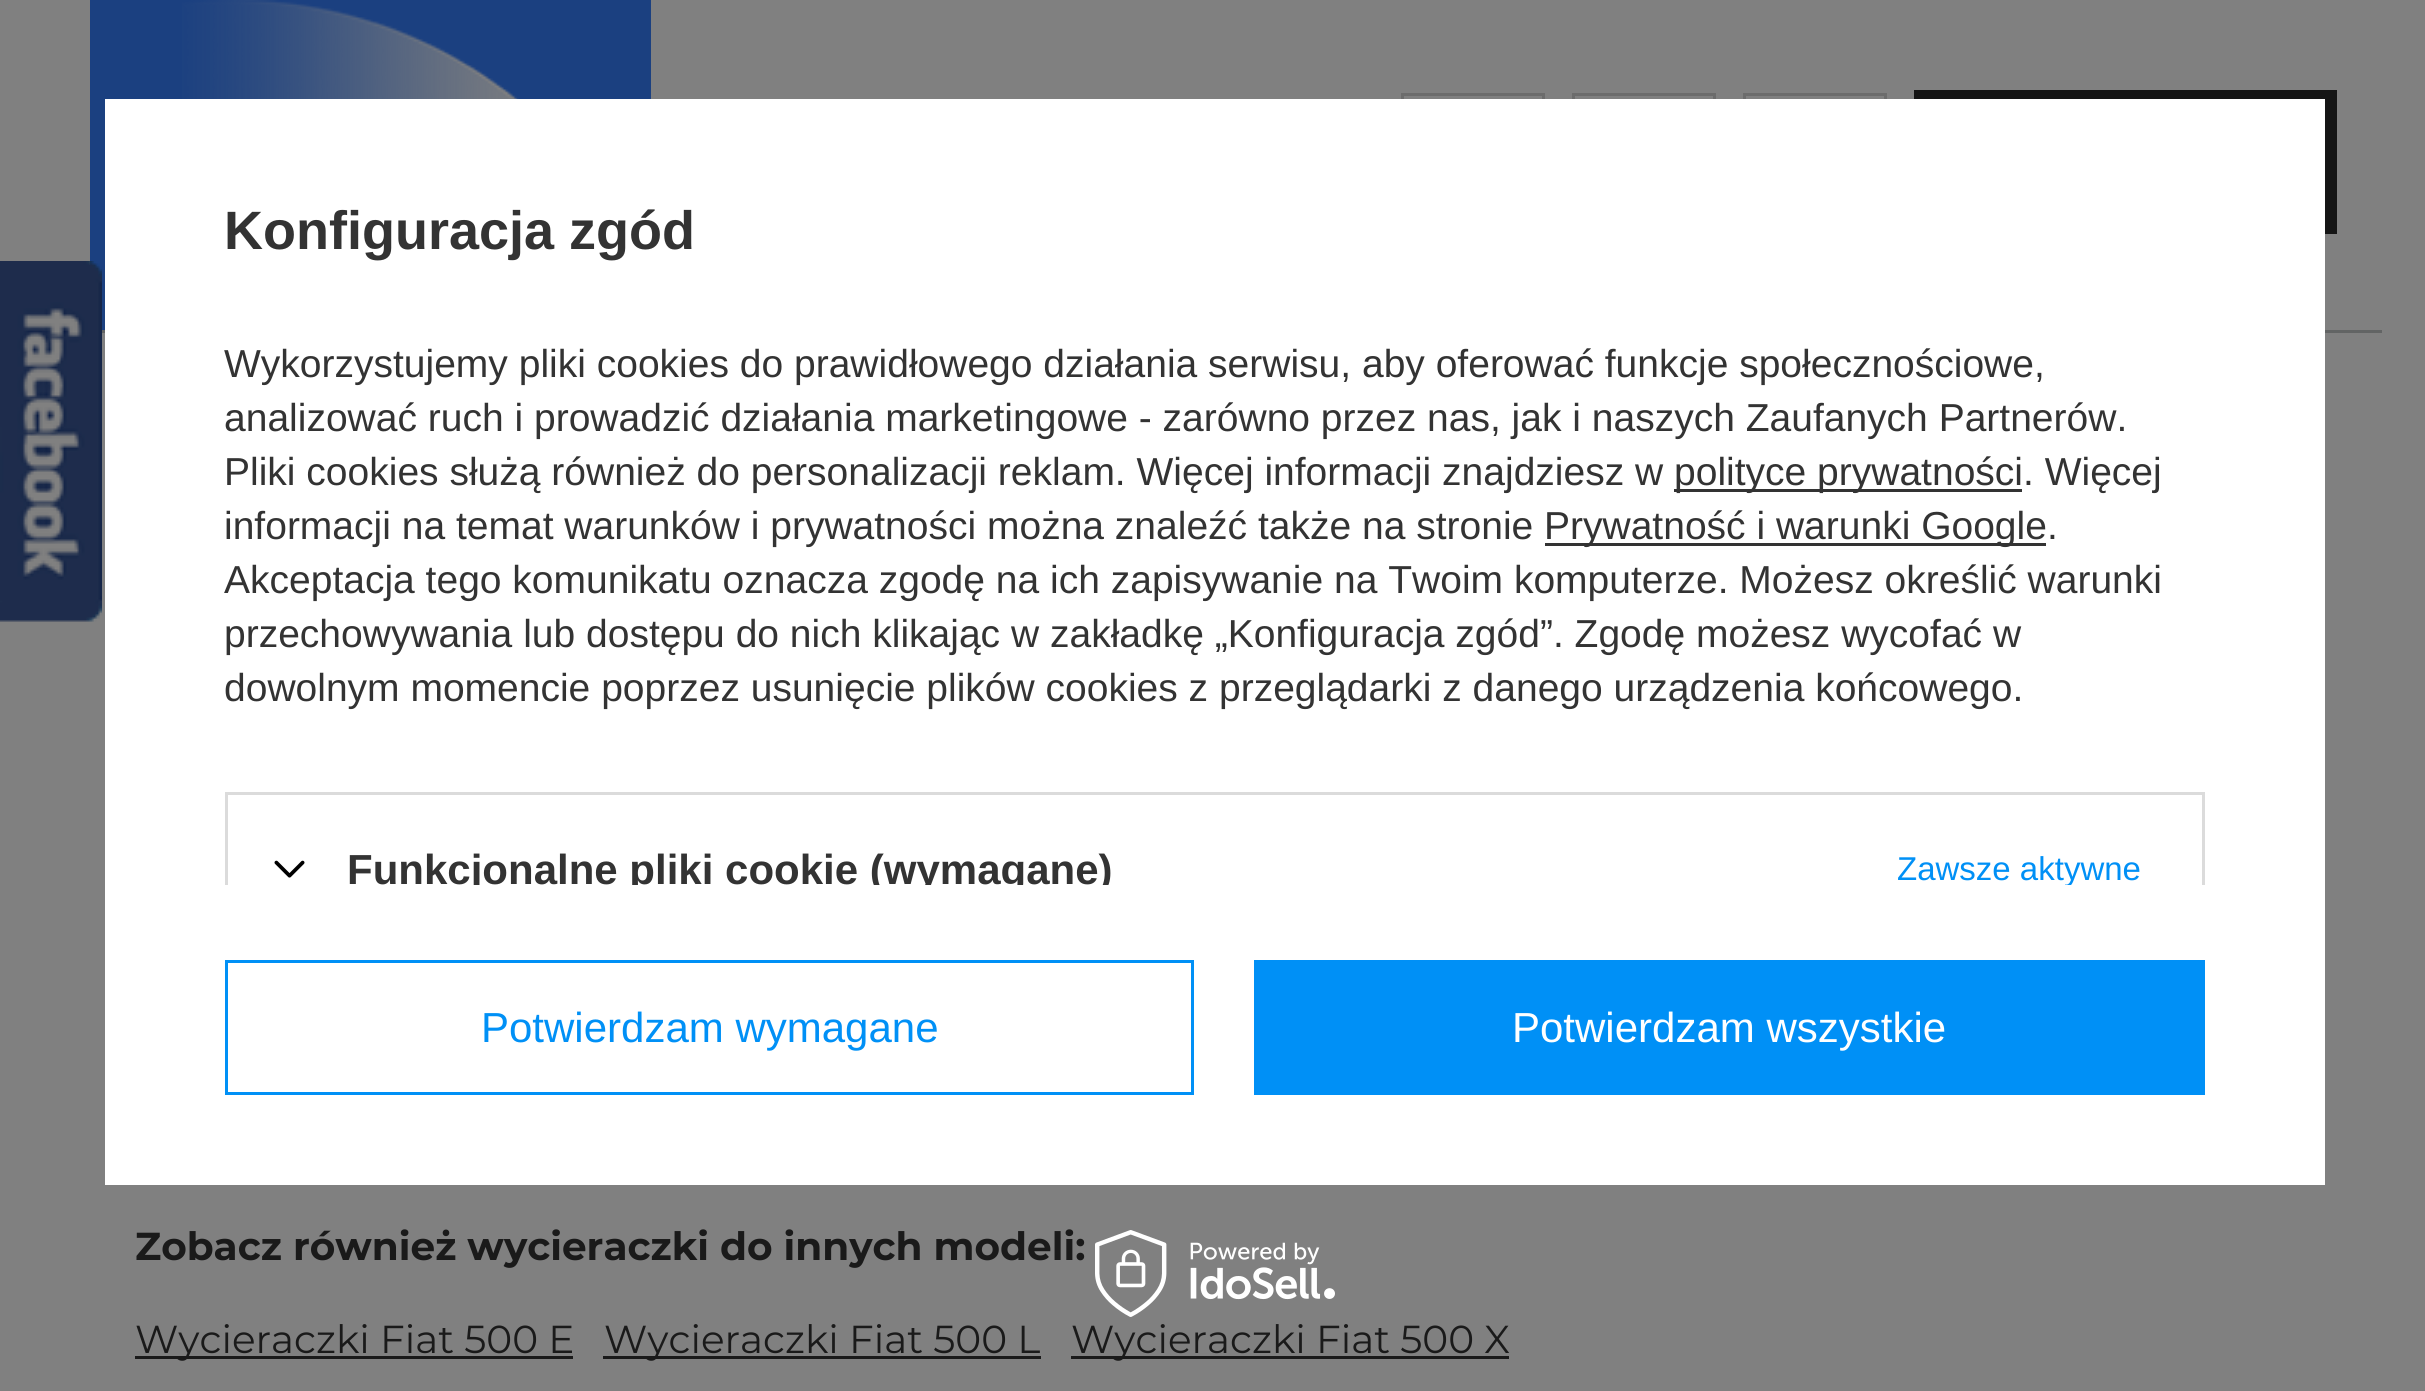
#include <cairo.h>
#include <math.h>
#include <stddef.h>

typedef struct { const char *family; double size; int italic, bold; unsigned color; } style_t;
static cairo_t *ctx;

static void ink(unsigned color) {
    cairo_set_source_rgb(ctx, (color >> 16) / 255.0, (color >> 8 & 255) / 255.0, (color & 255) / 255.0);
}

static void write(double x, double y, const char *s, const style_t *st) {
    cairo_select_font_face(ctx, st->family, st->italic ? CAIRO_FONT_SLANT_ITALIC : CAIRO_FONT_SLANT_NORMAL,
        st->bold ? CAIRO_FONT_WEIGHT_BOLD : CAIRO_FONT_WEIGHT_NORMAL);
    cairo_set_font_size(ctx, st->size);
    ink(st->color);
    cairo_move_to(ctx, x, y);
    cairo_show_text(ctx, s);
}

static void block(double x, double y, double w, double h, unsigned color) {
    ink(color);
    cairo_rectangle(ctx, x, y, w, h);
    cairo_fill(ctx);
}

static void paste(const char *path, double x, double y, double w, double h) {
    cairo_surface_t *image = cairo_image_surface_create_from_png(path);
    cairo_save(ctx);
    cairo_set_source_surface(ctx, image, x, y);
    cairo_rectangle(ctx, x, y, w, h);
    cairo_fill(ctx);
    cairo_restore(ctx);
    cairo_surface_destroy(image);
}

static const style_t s1 = {"Liberation Sans", 54, 0, 1, 0x333333};
static const style_t s2 = {"Liberation Sans", 39, 0, 0, 0x333333};
static const style_t s3 = {"Liberation Sans", 42, 0, 1, 0x333333};
static const style_t s4 = {"Liberation Sans", 33, 0, 0, 0x0090f6};
static const style_t s5 = {"Liberation Sans", 42, 0, 0, 0x0090f6};
static const style_t s6 = {"Liberation Sans", 42, 0, 0, 0xffffff};
static const style_t s7 = {"Montserrat", 39, 0, 1, 0x1a1a1a};
static const style_t s8 = {"Montserrat", 39, 0, 0, 0x1a1a1a};

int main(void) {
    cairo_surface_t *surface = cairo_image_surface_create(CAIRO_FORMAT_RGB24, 2425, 1391);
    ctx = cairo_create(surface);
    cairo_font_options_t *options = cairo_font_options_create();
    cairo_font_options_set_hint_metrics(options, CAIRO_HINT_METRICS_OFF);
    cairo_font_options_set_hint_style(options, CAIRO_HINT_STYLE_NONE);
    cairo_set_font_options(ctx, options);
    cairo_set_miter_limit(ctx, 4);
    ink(0x808080);
    cairo_paint(ctx);
    block(90, 0, 561, 330, 0x1b4080);
    paste("pic1.png", 0, 261, 102, 361);
    cairo_rectangle(ctx, 1402.5, 94.5, 141, 141);
    ink(0x6c6c6c);
    cairo_set_line_width(ctx, 3);
    cairo_stroke(ctx);
    cairo_rectangle(ctx, 1573.5, 94.5, 141, 141);
    cairo_stroke(ctx);
    cairo_rectangle(ctx, 1744.5, 94.5, 141, 141);
    cairo_stroke(ctx);
    block(1914, 90, 423, 144, 0x151515);
    block(102, 330, 2280, 3, 0x626464);
    block(105, 99, 2220, 1086, 0xffffff);
    write(224, 249, "Konfiguracja zgód", &s1);
    write(224, 377, "Wykorzystujemy pliki cookies do prawidłowego działania serwisu, aby oferować funkcje społecznościowe,", &s2);
    write(224, 431, "analizować ruch i prowadzić działania marketingowe - zarówno przez nas, jak i naszych Zaufanych Partnerów.", &s2);
    write(224, 485, "Pliki cookies służą również do personalizacji reklam. Więcej informacji znajdziesz w", &s2);
    block(1674, 489, 348, 3, 0x333333);
    write(1674, 485, "polityce prywatności. Więcej", &s2);
    write(224, 539, "informacji na temat warunków i prywatności można znaleźć także na stronie", &s2);
    block(1545, 543, 501, 3, 0x333333);
    write(1544, 539, "Prywatność i warunki Google.", &s2);
    write(224, 593, "Akceptacja tego komunikatu oznacza zgodę na ich zapisywanie na Twoim komputerze. Możesz określić warunki", &s2);
    write(224, 647, "przechowywania lub dostępu do nich klikając w zakładkę „Konfiguracja zgód”. Zgodę możesz wycofać w", &s2);
    write(224, 701, "dowolnym momencie poprzez usunięcie plików cookies z przeglądarki z danego urządzenia końcowego.", &s2);
    block(225, 792, 1980, 3, 0xdbdbdb);
    block(2202, 792, 3, 93, 0xdbdbdb);
    block(225, 792, 3, 93, 0xdbdbdb);
    paste("pic2.png", 274, 860, 31, 18);
    cairo_save(ctx);
    cairo_rectangle(ctx, 195, 189, 2040, 696);
    cairo_clip(ctx);
    write(347, 884, "Funkcjonalne pliki cookie (wymagane)", &s3);
    write(1897, 880, "Zawsze aktywne", &s4);
    cairo_restore(ctx);
    cairo_rectangle(ctx, 226.5, 961.5, 966, 132);
    ink(0x0090f6);
    cairo_stroke(ctx);
    write(481, 1042, "Potwierdzam wymagane", &s5);
    block(1254, 960, 951, 135, 0x0090f6);
    write(1512, 1042, "Potwierdzam wszystkie", &s6);
    paste("pic3.png", 1095, 1230, 240, 87);
    paste("pic4.png", 182, 0, 337, 99);
    write(135, 1260, "Zobacz również wycieraczki do innych modeli:", &s7);
    block(135, 1356, 438, 3, 0x1a1a1a);
    write(135, 1353, "Wycieraczki Fiat 500 E", &s8);
    block(603, 1356, 438, 3, 0x1a1a1a);
    write(604, 1353, "Wycieraczki Fiat 500 L", &s8);
    block(1071, 1356, 438, 3, 0x1a1a1a);
    write(1071, 1353, "Wycieraczki Fiat 500 X", &s8);
    cairo_surface_write_to_png(surface, "screenshot.png");
    cairo_font_options_destroy(options);
    cairo_destroy(ctx);
    cairo_surface_destroy(surface);
    return 0;
}
